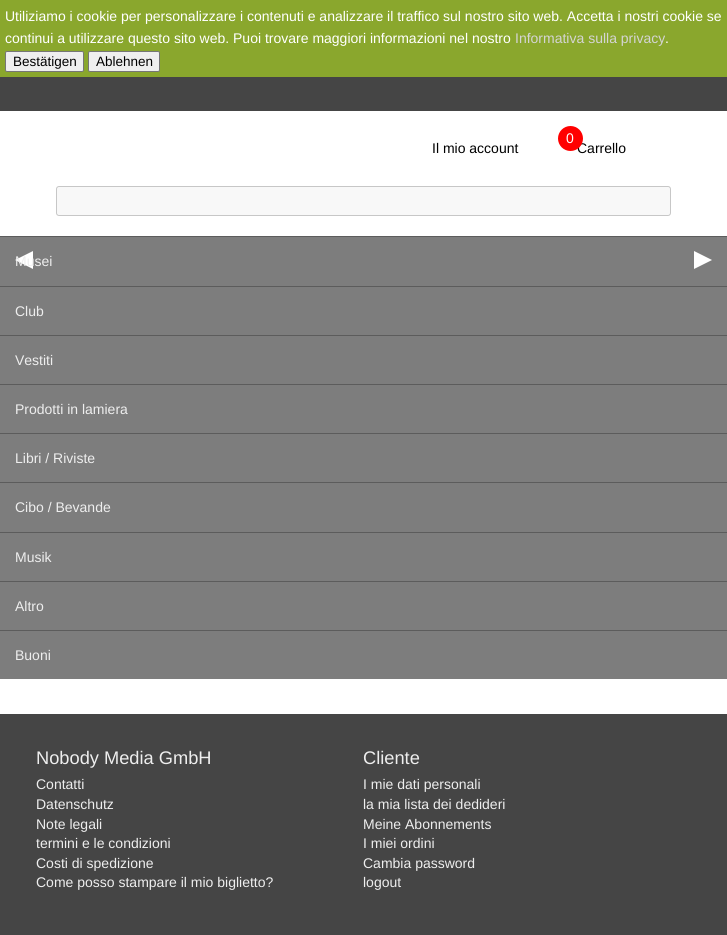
#include <cairo.h>
#include <math.h>
#include <stddef.h>

typedef struct { const char *family; double size; int italic, bold; unsigned color; } style_t;
static cairo_t *ctx;

static void ink(unsigned color) {
    cairo_set_source_rgb(ctx, (color >> 16) / 255.0, (color >> 8 & 255) / 255.0, (color & 255) / 255.0);
}

static void write(double x, double y, const char *s, const style_t *st) {
    cairo_select_font_face(ctx, st->family, st->italic ? CAIRO_FONT_SLANT_ITALIC : CAIRO_FONT_SLANT_NORMAL,
        st->bold ? CAIRO_FONT_WEIGHT_BOLD : CAIRO_FONT_WEIGHT_NORMAL);
    cairo_set_font_size(ctx, st->size);
    ink(st->color);
    cairo_move_to(ctx, x, y);
    cairo_show_text(ctx, s);
}

static void block(double x, double y, double w, double h, unsigned color) {
    ink(color);
    cairo_rectangle(ctx, x, y, w, h);
    cairo_fill(ctx);
}

static void round_path(double x, double y, double w, double h, double r) {
    cairo_new_sub_path(ctx);
    cairo_arc(ctx, x + w - r, y + h - r, r, 0, M_PI / 2);
    cairo_arc(ctx, x + r, y + h - r, r, M_PI / 2, M_PI);
    cairo_arc(ctx, x + r, y + r, r, M_PI, 1.5 * M_PI);
    cairo_arc(ctx, x + w - r, y + r, r, 1.5 * M_PI, 2 * M_PI);
    cairo_close_path(ctx);
}

static const style_t s1 = {"Liberation Sans", 14, 0, 0, 0xffffff};
static const style_t s2 = {"Liberation Sans", 14, 0, 0, 0xd4d4d4};
static const style_t s3 = {"Liberation Sans", 13.5, 0, 0, 0x000000};
static const style_t s4 = {"Liberation Sans", 14, 0, 0, 0x000000};
static const style_t s5 = {"Liberation Sans", 14, 0, 0, 0xeeeeee};
static const style_t s6 = {"Liberation Sans", 18.25, 0, 0, 0xeeeeee};

int main(void) {
    cairo_surface_t *surface = cairo_image_surface_create(CAIRO_FORMAT_RGB24, 727, 935);
    ctx = cairo_create(surface);
    cairo_font_options_t *options = cairo_font_options_create();
    cairo_font_options_set_hint_metrics(options, CAIRO_HINT_METRICS_OFF);
    cairo_font_options_set_hint_style(options, CAIRO_HINT_STYLE_NONE);
    cairo_set_font_options(ctx, options);
    cairo_set_miter_limit(ctx, 4);
    ink(0xffffff);
    cairo_paint(ctx);
    block(0, 0, 727, 77, 0x8aa72d);
    write(5, 21, "Utiliziamo i cookie per personalizzare i contenuti e analizzare il traffico sul nostro sito web. Accetta i nostri cookie se", &s1);
    write(5, 43, "continui a utilizzare questo sito web. Puoi trovare maggiori informazioni nel nostro", &s1);
    write(515, 43, "Informativa sulla privacy", &s2);
    write(665, 43, ".", &s1);
    ink(0xefefef);
    round_path(5.5, 51.5, 78, 20, 1.5);
    cairo_fill_preserve(ctx);
    ink(0x767676);
    cairo_set_line_width(ctx, 1);
    cairo_stroke(ctx);
    write(13, 66, "Bestätigen", &s3);
    ink(0xefefef);
    round_path(88.5, 51.5, 71, 20, 1.5);
    cairo_fill_preserve(ctx);
    ink(0x767676);
    cairo_stroke(ctx);
    write(96, 66, "Ablehnen", &s3);
    block(0, 77, 727, 34, 0x454545);
    write(432, 153, "Il mio account", &s4);
    write(577, 153, "Carrello", &s4);
    ink(0xff0000);
    cairo_new_path(ctx);
    cairo_arc(ctx, 570.5, 138.5, 12.5, 0, 2 * M_PI);
    cairo_fill(ctx);
    write(566, 143, "0", &s1);
    ink(0xf8f8f8);
    round_path(56.5, 186.5, 614, 29, 2.5);
    cairo_fill_preserve(ctx);
    ink(0xc7c7c7);
    cairo_stroke(ctx);
    block(0, 237, 727, 442, 0x7d7d7d);
    ink(0xffffff);
    cairo_new_path(ctx);
    cairo_move_to(ctx, 33, 251);
    cairo_line_to(ctx, 33, 269);
    cairo_line_to(ctx, 15, 260);
    cairo_close_path(ctx);
    cairo_fill(ctx);
    cairo_new_path(ctx);
    cairo_move_to(ctx, 694, 269);
    cairo_line_to(ctx, 694, 251);
    cairo_line_to(ctx, 712, 260);
    cairo_close_path(ctx);
    cairo_fill(ctx);
    block(0, 236, 727, 1, 0x5c5c5c);
    write(15, 266, "Musei", &s5);
    block(0, 286, 727, 1, 0x5c5c5c);
    write(15, 316, "Club", &s5);
    block(0, 335, 727, 1, 0x5c5c5c);
    write(15, 365, "Vestiti", &s5);
    block(0, 384, 727, 1, 0x5c5c5c);
    write(15, 414, "Prodotti in lamiera", &s5);
    block(0, 433, 727, 1, 0x5c5c5c);
    write(15, 463, "Libri / Riviste", &s5);
    block(0, 482, 727, 1, 0x5c5c5c);
    write(15, 512, "Cibo / Bevande", &s5);
    block(0, 532, 727, 1, 0x5c5c5c);
    write(15, 562, "Musik", &s5);
    block(0, 581, 727, 1, 0x5c5c5c);
    write(15, 611, "Altro", &s5);
    block(0, 630, 727, 1, 0x5c5c5c);
    write(15, 660, "Buoni", &s5);
    block(0, 714, 727, 221, 0x454545);
    write(36, 764, "Nobody Media GmbH", &s6);
    write(36, 789, "Contatti", &s5);
    write(36, 809, "Datenschutz", &s5);
    write(36, 829, "Note legali", &s5);
    write(36, 848, "termini e le condizioni", &s5);
    write(36, 868, "Costi di spedizione", &s5);
    write(36, 887, "Come posso stampare il mio biglietto?", &s5);
    write(363, 764, "Cliente", &s6);
    write(363, 789, "I mie dati personali", &s5);
    write(363, 809, "la mia lista dei dedideri", &s5);
    write(363, 829, "Meine Abonnements", &s5);
    write(363, 848, "I miei ordini", &s5);
    write(363, 868, "Cambia password", &s5);
    write(363, 887, "logout", &s5);
    cairo_surface_write_to_png(surface, "screenshot.png");
    cairo_font_options_destroy(options);
    cairo_destroy(ctx);
    cairo_surface_destroy(surface);
    return 0;
}
